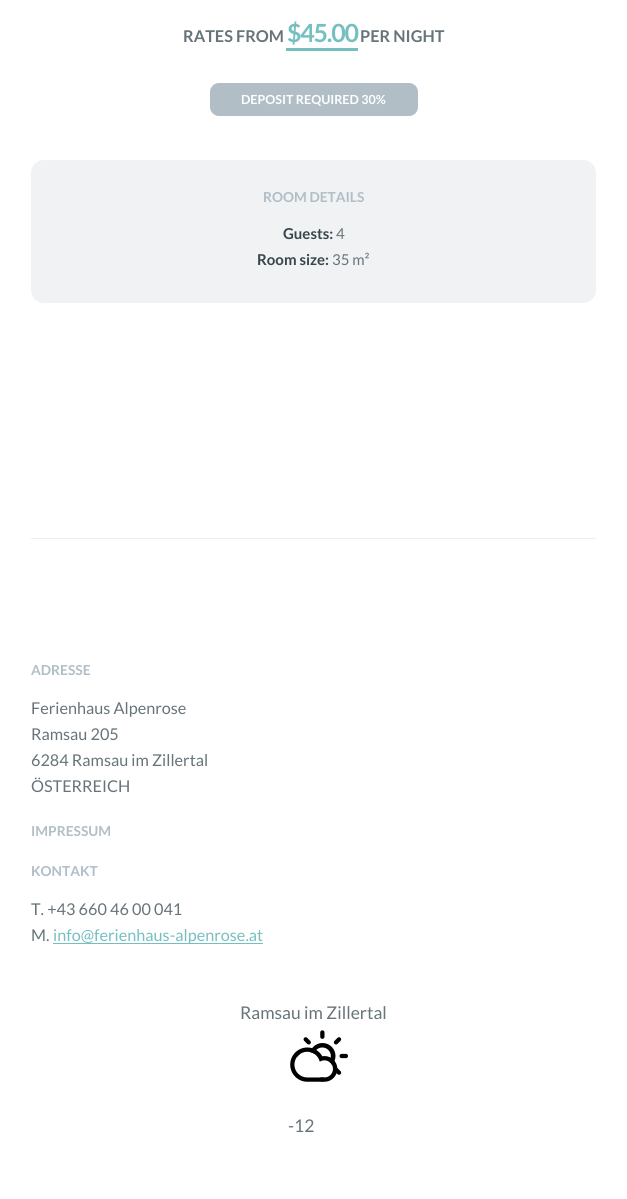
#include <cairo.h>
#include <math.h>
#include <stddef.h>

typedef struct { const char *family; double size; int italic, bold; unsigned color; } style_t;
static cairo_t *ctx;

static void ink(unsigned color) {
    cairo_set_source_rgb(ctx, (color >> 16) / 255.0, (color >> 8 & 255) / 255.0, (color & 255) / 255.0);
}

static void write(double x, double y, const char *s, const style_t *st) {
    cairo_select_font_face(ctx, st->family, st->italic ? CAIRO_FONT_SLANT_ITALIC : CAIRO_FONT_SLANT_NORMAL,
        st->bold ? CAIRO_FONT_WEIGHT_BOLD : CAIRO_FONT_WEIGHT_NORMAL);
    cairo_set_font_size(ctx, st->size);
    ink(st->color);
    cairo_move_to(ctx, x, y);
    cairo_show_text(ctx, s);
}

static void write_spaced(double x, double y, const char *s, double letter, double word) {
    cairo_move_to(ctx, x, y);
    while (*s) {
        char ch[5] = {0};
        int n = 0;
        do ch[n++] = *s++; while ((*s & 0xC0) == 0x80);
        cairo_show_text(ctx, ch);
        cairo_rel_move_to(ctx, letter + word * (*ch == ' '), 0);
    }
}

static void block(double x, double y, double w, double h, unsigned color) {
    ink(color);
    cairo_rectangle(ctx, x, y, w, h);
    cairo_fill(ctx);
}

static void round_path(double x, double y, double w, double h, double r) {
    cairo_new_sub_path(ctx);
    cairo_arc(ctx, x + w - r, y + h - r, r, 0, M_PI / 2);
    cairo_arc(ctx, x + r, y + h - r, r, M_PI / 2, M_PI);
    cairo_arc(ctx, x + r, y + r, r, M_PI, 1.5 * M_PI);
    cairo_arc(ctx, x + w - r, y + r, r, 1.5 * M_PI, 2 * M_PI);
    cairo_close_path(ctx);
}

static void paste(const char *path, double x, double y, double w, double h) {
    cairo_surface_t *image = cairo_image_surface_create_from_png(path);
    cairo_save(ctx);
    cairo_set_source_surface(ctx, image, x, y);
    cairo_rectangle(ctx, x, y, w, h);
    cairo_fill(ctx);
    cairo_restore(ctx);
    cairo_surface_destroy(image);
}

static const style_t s1 = {"Lato", 16.25, 0, 1, 0x67747a};
static const style_t s2 = {"Lato", 12.5, 0, 1, 0xffffff};
static const style_t s3 = {"Lato", 13.75, 0, 1, 0xb1bec6};
static const style_t s4 = {"Lato", 15, 0, 1, 0x37464d};
static const style_t s5 = {"Lato", 15, 0, 0, 0x67747a};
static const style_t s6 = {"Lato", 16.25, 0, 0, 0x67747a};
static const style_t s7 = {"Lato", 16.25, 0, 0, 0x76bfc1};
static const style_t s8 = {"Lato", 17.5, 0, 0, 0x67747a};

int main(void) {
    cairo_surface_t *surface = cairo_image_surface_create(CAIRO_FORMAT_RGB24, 627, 1199);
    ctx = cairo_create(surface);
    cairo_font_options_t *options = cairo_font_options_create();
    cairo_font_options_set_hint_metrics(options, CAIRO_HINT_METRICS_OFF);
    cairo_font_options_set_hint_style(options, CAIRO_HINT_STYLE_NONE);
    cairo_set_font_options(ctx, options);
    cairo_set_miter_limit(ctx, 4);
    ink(0xffffff);
    cairo_paint(ctx);
    write(183, 42, "RATES FROM", &s1);
    cairo_set_font_size(ctx, 25);
    ink(0x76bfc1);
    write_spaced(287, 42, "$45.00", -1.25, 0);
    block(286, 48, 72, 3, 0x76bfc1);
    write(360, 42, "PER NIGHT", &s1);
    ink(0xb1bec6);
    round_path(210, 83, 208, 33, 9);
    cairo_fill(ctx);
    write(241, 104, "DEPOSIT REQUIRED 30%", &s2);
    ink(0xf0f2f4);
    round_path(31, 160, 565, 143, 13);
    cairo_fill(ctx);
    write(263, 202, "ROOM DETAILS", &s3);
    write(283, 239, "Guests:", &s4);
    write(336, 239, "4", &s5);
    write(257, 265, "Room size:", &s4);
    write(332, 265, "35 m²", &s5);
    block(31, 538, 565, 1, 0xeeeeee);
    write(31, 675, "ADRESSE", &s3);
    write(31, 714, "Ferienhaus Alpenrose", &s6);
    write(31, 740, "Ramsau 205", &s6);
    write(31, 766, "6284 Ramsau im Zillertal", &s6);
    write(31, 792, "ÖSTERREICH", &s6);
    write(31, 836, "IMPRESSUM", &s3);
    write(31, 876, "KONTAKT", &s3);
    write(31, 915, "T. +43 660 46 00 041", &s6);
    write(31, 941, "M.", &s6);
    block(53, 943, 210, 1, 0x76bfc1);
    write(53, 941, "info@ferienhaus-alpenrose.at", &s7);
    write(240, 1019, "Ramsau im Zillertal", &s8);
    paste("pic1.png", 290, 1030, 58, 52);
    write(288, 1132, "-12", &s8);
    cairo_surface_write_to_png(surface, "screenshot.png");
    cairo_font_options_destroy(options);
    cairo_destroy(ctx);
    cairo_surface_destroy(surface);
    return 0;
}
